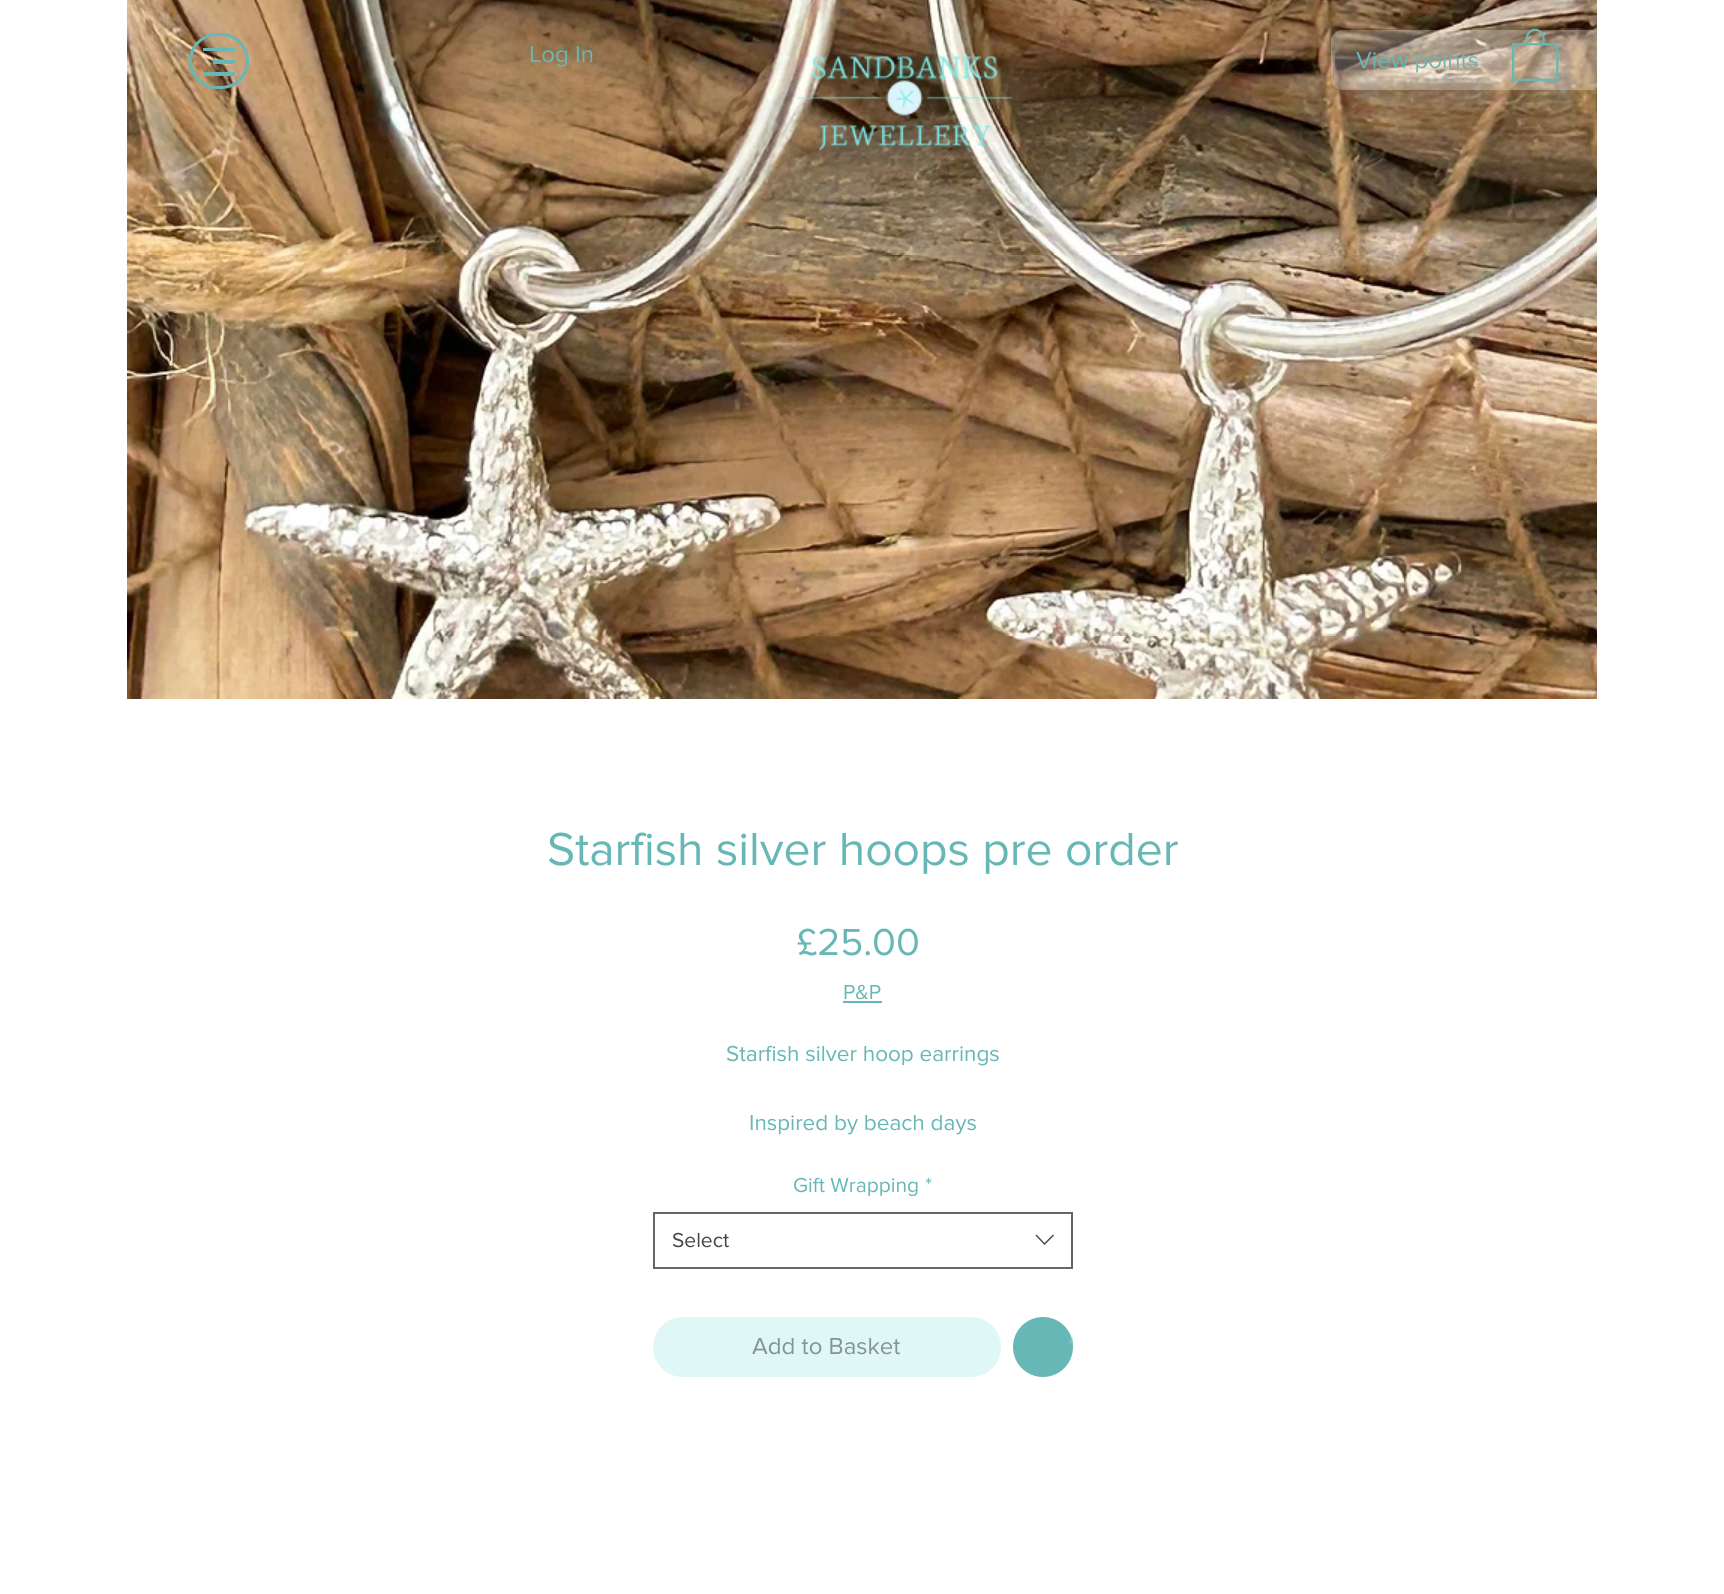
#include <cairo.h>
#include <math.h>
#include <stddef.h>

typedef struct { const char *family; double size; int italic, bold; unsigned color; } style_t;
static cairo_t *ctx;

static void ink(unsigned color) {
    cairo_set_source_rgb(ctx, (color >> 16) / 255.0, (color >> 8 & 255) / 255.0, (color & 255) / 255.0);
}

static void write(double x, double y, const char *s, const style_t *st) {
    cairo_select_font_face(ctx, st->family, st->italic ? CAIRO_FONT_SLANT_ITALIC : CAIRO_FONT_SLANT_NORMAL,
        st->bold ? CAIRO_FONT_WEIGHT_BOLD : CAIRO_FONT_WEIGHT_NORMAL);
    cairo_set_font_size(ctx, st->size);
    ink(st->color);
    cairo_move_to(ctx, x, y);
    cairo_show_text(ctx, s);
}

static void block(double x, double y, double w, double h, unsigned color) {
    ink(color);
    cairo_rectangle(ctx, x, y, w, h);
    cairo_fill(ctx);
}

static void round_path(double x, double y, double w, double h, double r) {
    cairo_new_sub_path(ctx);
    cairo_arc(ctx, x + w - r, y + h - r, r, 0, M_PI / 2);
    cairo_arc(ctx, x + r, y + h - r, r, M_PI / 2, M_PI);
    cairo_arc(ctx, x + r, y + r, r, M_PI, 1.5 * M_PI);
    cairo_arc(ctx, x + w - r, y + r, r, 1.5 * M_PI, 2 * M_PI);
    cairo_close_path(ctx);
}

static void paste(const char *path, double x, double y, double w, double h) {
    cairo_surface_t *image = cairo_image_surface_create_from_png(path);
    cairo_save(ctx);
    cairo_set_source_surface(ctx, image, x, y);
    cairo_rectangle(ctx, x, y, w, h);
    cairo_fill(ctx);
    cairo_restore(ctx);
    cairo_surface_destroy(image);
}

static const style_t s1 = {"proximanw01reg", 24, 0, 0, 0x67b7b7};
static const style_t s2 = {"proximanw01reg", 48, 0, 0, 0x67b7b7};
static const style_t s3 = {"proximanw01reg", 39, 0, 0, 0x67b7b7};
static const style_t s4 = {"proximanw01reg", 21, 0, 0, 0x67b7b7};
static const style_t s5 = {"proximanw01reg", 22.5, 0, 0, 0x67b7b7};
static const style_t s6 = {"proximanw01reg", 21, 0, 0, 0x444444};
static const style_t s7 = {"proximanw01reg", 24, 0, 0, 0x839498};
static const style_t s8 = {"proximanw01reg", 24, 1, 0, 0x84c5c5};

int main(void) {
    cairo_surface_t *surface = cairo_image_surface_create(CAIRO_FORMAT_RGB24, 1724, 1594);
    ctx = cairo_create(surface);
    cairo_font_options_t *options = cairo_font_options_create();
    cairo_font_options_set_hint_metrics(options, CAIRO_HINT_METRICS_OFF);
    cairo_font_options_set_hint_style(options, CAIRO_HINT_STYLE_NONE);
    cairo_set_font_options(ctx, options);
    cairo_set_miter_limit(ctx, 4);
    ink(0xffffff);
    cairo_paint(ctx);
    paste("pic3.png", 127, 0, 1470, 699);
    round_path(190.5, 34.5, 57, 53, 26.5);
    ink(0x67b7b7);
    cairo_set_line_width(ctx, 3);
    cairo_stroke(ctx);
    block(203, 48, 32, 3, 0x67b7b7);
    block(213, 60, 22, 4, 0x67b7b7);
    block(203, 72, 32, 4, 0x67b7b7);
    write(529, 62, "Log In", &s1);
    paste("pic1.png", 796, 55, 217, 97);
    cairo_set_source_rgba(ctx, 1, 1, 1, 0.28);
    round_path(1331, 30, 324, 60, 12);
    cairo_fill(ctx);
    write(1356, 68, "View points", &s1);
    paste("pic2.png", 1512, 28, 47, 53);
    write(547, 865, "Starfish silver hoops pre order", &s2);
    write(797, 955, "£25.00", &s3);
    write(843, 999, "P&P", &s4);
    block(843, 1001, 39, 2, 0x67b7b7);
    write(726, 1061, "Starfish silver hoop earrings", &s5);
    write(749, 1130, "Inspired by beach days", &s5);
    write(793, 1192, "Gift Wrapping", &s4);
    write(925, 1192, "*", &s4);
    cairo_rectangle(ctx, 654, 1213, 418, 55);
    ink(0x666666);
    cairo_set_line_width(ctx, 2);
    cairo_stroke(ctx);
    write(672, 1247, "Select", &s6);
    cairo_set_fill_rule(ctx, CAIRO_FILL_RULE_EVEN_ODD);
    cairo_new_path(ctx);
    cairo_move_to(ctx, 1053, 1234.5);
    cairo_line_to(ctx, 1054, 1235.5);
    cairo_line_to(ctx, 1044.5, 1245);
    cairo_line_to(ctx, 1035.5, 1235.5);
    cairo_line_to(ctx, 1036.5, 1234.5);
    cairo_line_to(ctx, 1044.5, 1243);
    cairo_close_path(ctx);
    cairo_fill(ctx);
    ink(0xdff7f7);
    round_path(653, 1317, 348, 60, 30);
    cairo_fill(ctx);
    write(752, 1354, "Add to Basket", &s7);
    ink(0x67b7b7);
    cairo_new_path(ctx);
    cairo_arc(ctx, 1043, 1347, 30, 0, 2 * M_PI);
    cairo_fill(ctx);
    cairo_save(ctx);
    cairo_set_fill_rule(ctx, CAIRO_FILL_RULE_WINDING);
    cairo_rectangle(ctx, 1013, 1323, 60, 48);
    cairo_clip(ctx);
    write(1064, 1354, "*", &s8);
    cairo_restore(ctx);
    cairo_surface_write_to_png(surface, "screenshot.png");
    cairo_font_options_destroy(options);
    cairo_destroy(ctx);
    cairo_surface_destroy(surface);
    return 0;
}
